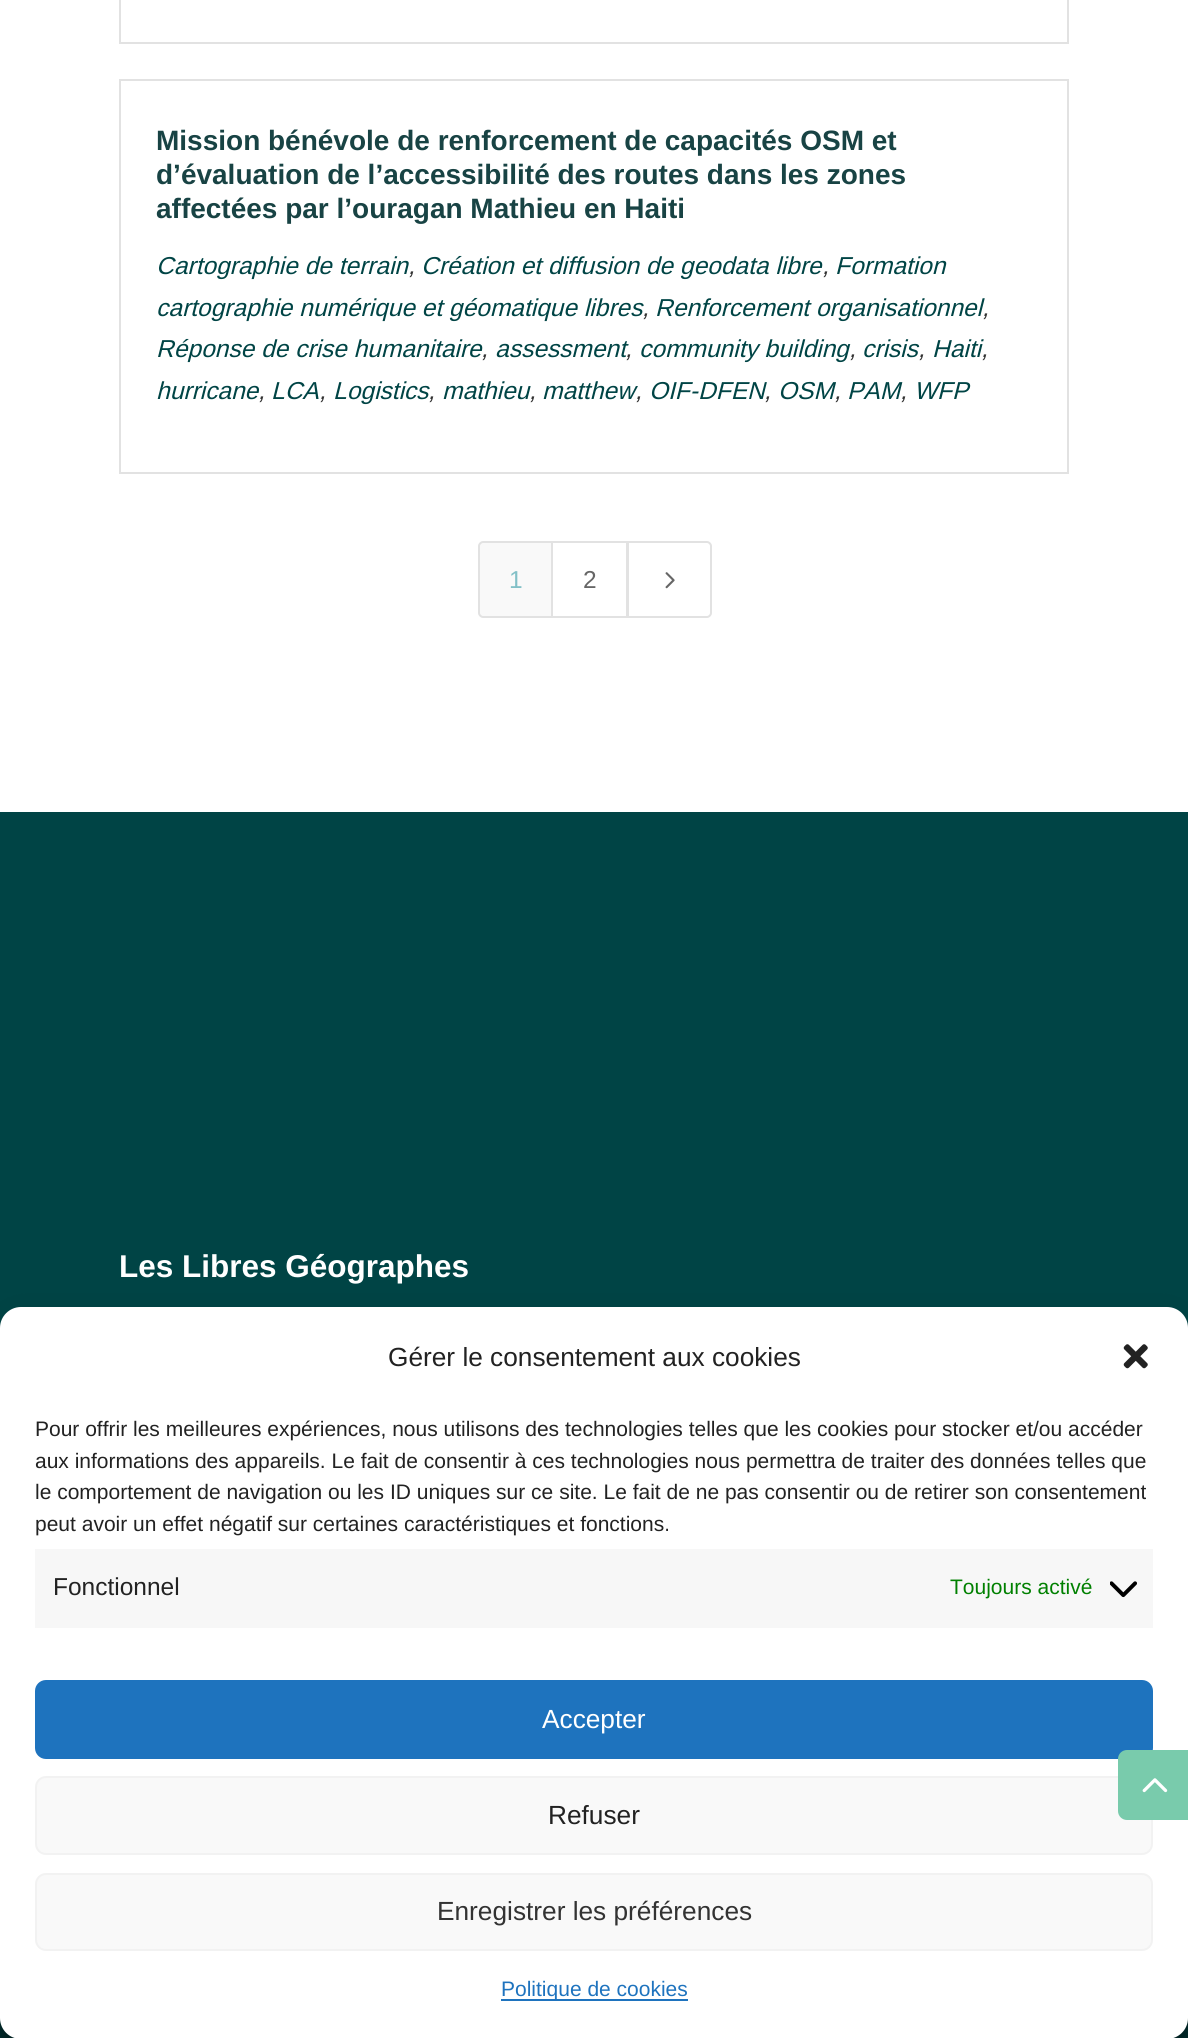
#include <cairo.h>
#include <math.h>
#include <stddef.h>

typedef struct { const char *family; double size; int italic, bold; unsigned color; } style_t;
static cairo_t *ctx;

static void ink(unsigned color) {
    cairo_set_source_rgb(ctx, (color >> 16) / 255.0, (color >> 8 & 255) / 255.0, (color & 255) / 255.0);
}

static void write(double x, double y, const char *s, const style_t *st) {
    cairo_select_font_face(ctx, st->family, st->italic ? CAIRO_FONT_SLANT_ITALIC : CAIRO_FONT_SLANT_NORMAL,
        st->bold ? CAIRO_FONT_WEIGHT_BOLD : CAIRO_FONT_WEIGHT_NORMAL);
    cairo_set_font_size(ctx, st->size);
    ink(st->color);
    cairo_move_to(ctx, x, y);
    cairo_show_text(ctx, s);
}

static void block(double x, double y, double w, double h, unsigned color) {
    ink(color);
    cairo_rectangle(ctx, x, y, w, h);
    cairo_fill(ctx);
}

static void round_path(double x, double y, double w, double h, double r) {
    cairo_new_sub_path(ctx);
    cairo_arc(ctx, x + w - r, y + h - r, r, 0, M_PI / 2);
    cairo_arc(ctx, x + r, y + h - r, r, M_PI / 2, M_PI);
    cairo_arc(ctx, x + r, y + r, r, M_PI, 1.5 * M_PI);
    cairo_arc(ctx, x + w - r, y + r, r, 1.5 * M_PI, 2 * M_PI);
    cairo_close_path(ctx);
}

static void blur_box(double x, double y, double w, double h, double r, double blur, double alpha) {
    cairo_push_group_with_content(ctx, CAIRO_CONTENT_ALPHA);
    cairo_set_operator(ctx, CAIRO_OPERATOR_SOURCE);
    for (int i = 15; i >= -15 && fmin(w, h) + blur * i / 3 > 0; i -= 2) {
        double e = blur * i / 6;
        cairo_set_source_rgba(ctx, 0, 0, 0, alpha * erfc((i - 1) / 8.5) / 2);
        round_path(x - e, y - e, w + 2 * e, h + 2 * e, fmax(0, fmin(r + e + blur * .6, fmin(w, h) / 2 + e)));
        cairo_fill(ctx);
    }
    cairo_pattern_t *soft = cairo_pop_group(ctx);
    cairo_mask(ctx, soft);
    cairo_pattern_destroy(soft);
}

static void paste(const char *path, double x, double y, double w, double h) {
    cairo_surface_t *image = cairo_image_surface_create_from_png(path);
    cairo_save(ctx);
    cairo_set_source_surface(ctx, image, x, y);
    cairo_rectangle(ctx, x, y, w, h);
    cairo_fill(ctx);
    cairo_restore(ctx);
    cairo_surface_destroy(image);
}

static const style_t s1 = {"Liberation Sans", 28, 0, 1, 0x184344};
static const style_t s2 = {"Liberation Sans", 24.5, 1, 0, 0x004445};
static const style_t s3 = {"Liberation Sans", 24.5, 1, 0, 0x333333};
static const style_t s4 = {"Liberation Sans", 24.5, 0, 0, 0x82c0c7};
static const style_t s5 = {"Liberation Sans", 24.5, 0, 0, 0x666666};
static const style_t s6 = {"Liberation Sans", 31.5, 0, 1, 0xffffff};
static const style_t s7 = {"Liberation Sans", 26.25, 0, 0, 0x222222};
static const style_t s8 = {"Liberation Sans", 21, 0, 0, 0x222222};
static const style_t s9 = {"Liberation Sans", 24.5, 0, 0, 0x222222};
static const style_t s10 = {"Liberation Sans", 21, 0, 0, 0x008000};
static const style_t s11 = {"Liberation Sans", 26.25, 0, 0, 0xffffff};
static const style_t s12 = {"Liberation Sans", 26.25, 0, 0, 0x333333};
static const style_t s13 = {"Liberation Sans", 21, 0, 0, 0x1e73be};

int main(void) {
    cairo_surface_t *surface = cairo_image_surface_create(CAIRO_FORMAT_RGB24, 1188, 2038);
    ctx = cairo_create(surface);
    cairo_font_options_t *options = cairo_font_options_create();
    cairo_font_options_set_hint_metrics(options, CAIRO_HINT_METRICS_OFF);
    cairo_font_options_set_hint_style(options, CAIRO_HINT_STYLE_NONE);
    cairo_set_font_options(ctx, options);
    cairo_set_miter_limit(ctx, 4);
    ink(0xffffff);
    cairo_paint(ctx);
    cairo_rectangle(ctx, 120, -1, 948, 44);
    ink(0xe2e2e2);
    cairo_stroke(ctx);
    cairo_rectangle(ctx, 120, 80, 948, 393);
    cairo_stroke(ctx);
    write(156, 150, "Mission bénévole de renforcement de capacités OSM et", &s1);
    write(156, 184, "d’évaluation de l’accessibilité des routes dans les zones", &s1);
    write(156, 218, "affectées par l’ouragan Mathieu en Haiti", &s1);
    write(156, 274, "Cartographie de terrain", &s2);
    write(408, 274, ",", &s3);
    write(421, 274, "Création et diffusion de geodata libre", &s2);
    write(822, 274, ",", &s3);
    write(835, 274, "Formation", &s2);
    write(156, 316, "cartographie numérique et géomatique libres", &s2);
    write(642, 316, ",", &s3);
    write(655, 316, "Renforcement organisationnel", &s2);
    write(982, 316, ",", &s3);
    write(156, 357, "Réponse de crise humanitaire", &s2);
    write(481, 357, ",", &s3);
    write(495, 357, "assessment", &s2);
    write(639, 357, "community building", &s2);
    write(862, 357, "crisis", &s2);
    write(932, 357, "Haiti", &s2);
    write(625, 357, ",", &s3);
    write(849, 357, ",", &s3);
    write(918, 357, ",", &s3);
    write(981, 357, ",", &s3);
    write(156, 399, "hurricane", &s2);
    write(258, 399, ",", &s3);
    write(271, 399, "LCA", &s2);
    write(319, 399, ",", &s3);
    write(333, 399, "Logistics", &s2);
    write(428, 399, ",", &s3);
    write(442, 399, "mathieu", &s2);
    write(529, 399, ",", &s3);
    write(542, 399, "matthew", &s2);
    write(649, 399, "OIF-DFEN", &s2);
    write(778, 399, "OSM", &s2);
    write(847, 399, "PAM", &s2);
    write(914, 399, "WFP", &s2);
    write(635, 399, ",", &s3);
    write(764, 399, ",", &s3);
    write(834, 399, ",", &s3);
    write(900, 399, ",", &s3);
    ink(0xf9f9f9);
    cairo_new_path(ctx);
    cairo_move_to(ctx, 483, 542);
    cairo_line_to(ctx, 552, 542);
    cairo_line_to(ctx, 552, 617);
    cairo_line_to(ctx, 483, 617);
    cairo_curve_to(ctx, 481, 617, 479, 615, 479, 613);
    cairo_line_to(ctx, 479, 546);
    cairo_curve_to(ctx, 479, 544, 481, 542, 483, 542);
    cairo_close_path(ctx);
    cairo_fill_preserve(ctx);
    ink(0xe2e2e2);
    cairo_stroke(ctx);
    write(509, 588, "1", &s4);
    cairo_rectangle(ctx, 552, 542, 75, 75);
    ink(0xe2e2e2);
    cairo_stroke(ctx);
    write(583, 588, "2", &s5);
    ink(0xffffff);
    cairo_new_path(ctx);
    cairo_move_to(ctx, 628, 542);
    cairo_line_to(ctx, 707, 542);
    cairo_curve_to(ctx, 709, 542, 711, 544, 711, 546);
    cairo_line_to(ctx, 711, 613);
    cairo_curve_to(ctx, 711, 615, 709, 617, 707, 617);
    cairo_line_to(ctx, 628, 617);
    cairo_close_path(ctx);
    cairo_fill_preserve(ctx);
    ink(0xe2e2e2);
    cairo_stroke(ctx);
    paste("pic1.png", 665, 572, 10, 17);
    block(0, 812, 1188, 516, 0x004445);
    write(119, 1277, "Les Libres Géographes", &s6);
    block(0, 2018, 1188, 20, 0x002e2f);
    ink(0x000000);
    blur_box(0, 1318, 1188, 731, 21, 5, 0.23);
    blur_box(0, 1325, 1188, 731, 21, 17.5, 0.19);
    ink(0xffffff);
    round_path(0, 1307, 1188, 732, 21);
    cairo_fill(ctx);
    ink(0x1e73be);
    round_path(36, 1681, 1116, 77, 10);
    cairo_fill_preserve(ctx);
    cairo_stroke(ctx);
    ink(0xf9f9f9);
    round_path(36, 1777, 1116, 77, 10);
    cairo_fill_preserve(ctx);
    ink(0xf2f2f2);
    cairo_stroke(ctx);
    ink(0x79cbac);
    cairo_new_path(ctx);
    cairo_move_to(ctx, 1127, 1750);
    cairo_line_to(ctx, 1188, 1750);
    cairo_line_to(ctx, 1188, 1820);
    cairo_line_to(ctx, 1127, 1820);
    cairo_curve_to(ctx, 1122, 1820, 1118, 1816, 1118, 1811);
    cairo_line_to(ctx, 1118, 1759);
    cairo_curve_to(ctx, 1118, 1754, 1122, 1750, 1127, 1750);
    cairo_close_path(ctx);
    cairo_fill(ctx);
    paste("pic2.png", 1142, 1778, 26, 15);
    write(388, 1366, "Gérer le consentement aux cookies", &s7);
    paste("pic3.png", 1123, 1344, 25, 25);
    write(35, 1436, "Pour offrir les meilleures expériences, nous utilisons des technologies telles que les cookies pour stocker et/ou accéder", &s8);
    write(35, 1468, "aux informations des appareils. Le fait de consentir à ces technologies nous permettra de traiter des données telles que", &s8);
    write(35, 1499, "le comportement de navigation ou les ID uniques sur ce site. Le fait de ne pas consentir ou de retirer son consentement", &s8);
    write(35, 1531, "peut avoir un effet négatif sur certaines caractéristiques et fonctions.", &s8);
    block(35, 1549, 1118, 79, 0xf7f7f7);
    write(53, 1595, "Fonctionnel", &s9);
    write(950, 1594, "Toujours activé", &s10);
    paste("pic4.png", 1110, 1581, 27, 17);
    write(542, 1728, "Accepter", &s11);
    write(548, 1824, "Refuser", &s7);
    ink(0xf9f9f9);
    round_path(36, 1874, 1116, 76, 10);
    cairo_fill_preserve(ctx);
    ink(0xf2f2f2);
    cairo_stroke(ctx);
    write(437, 1920, "Enregistrer les préférences", &s12);
    block(501, 1999, 187, 2, 0x1e73be);
    write(501, 1996, "Politique de cookies", &s13);
    cairo_surface_write_to_png(surface, "screenshot.png");
    cairo_font_options_destroy(options);
    cairo_destroy(ctx);
    cairo_surface_destroy(surface);
    return 0;
}
